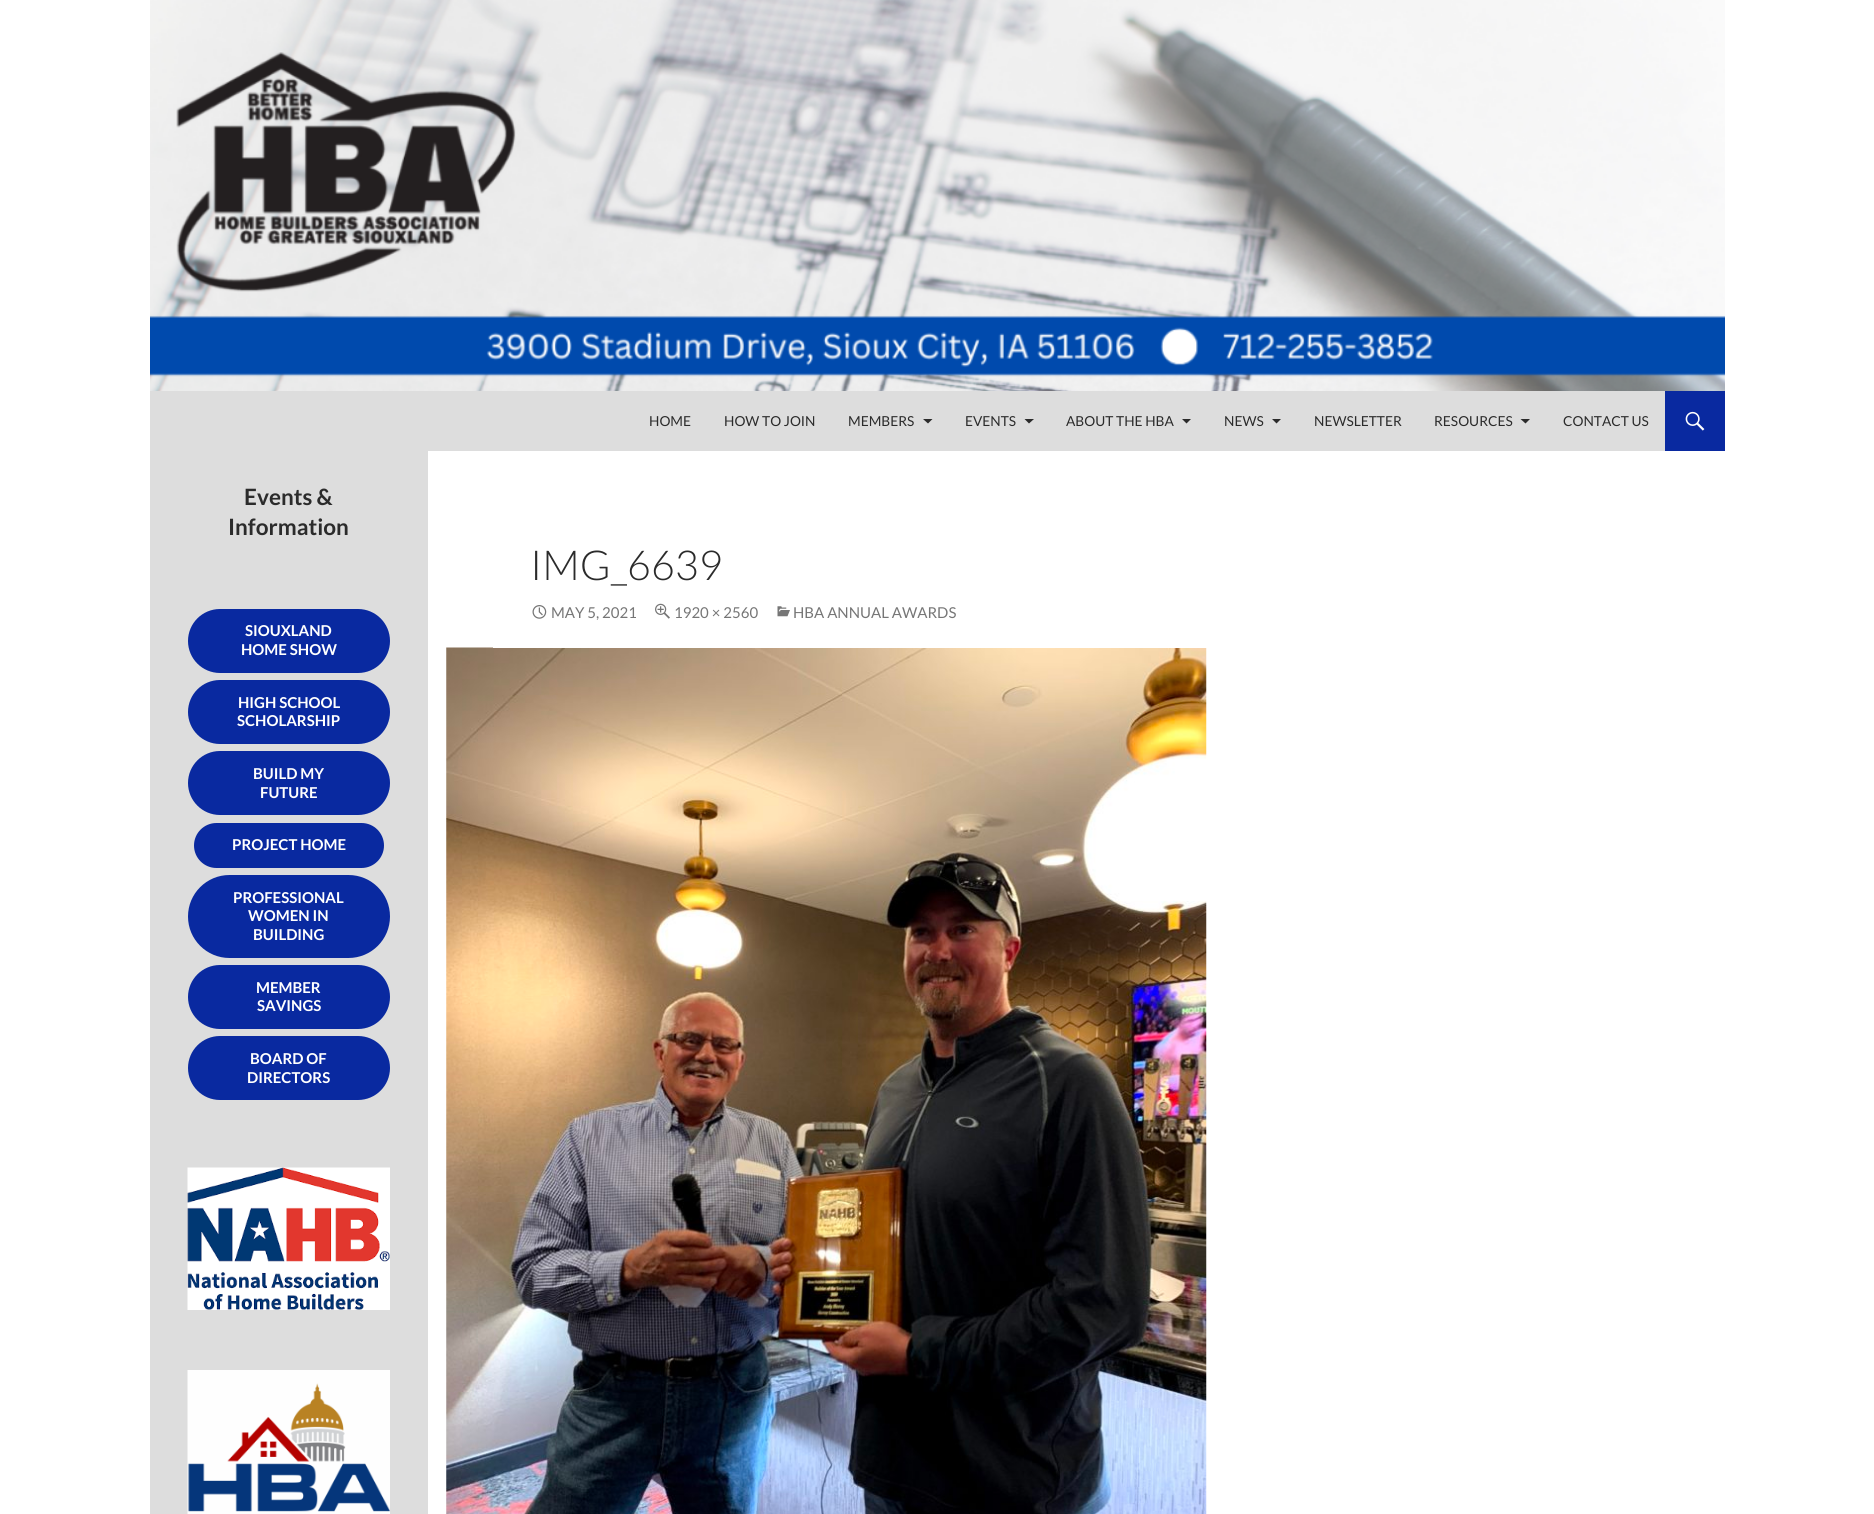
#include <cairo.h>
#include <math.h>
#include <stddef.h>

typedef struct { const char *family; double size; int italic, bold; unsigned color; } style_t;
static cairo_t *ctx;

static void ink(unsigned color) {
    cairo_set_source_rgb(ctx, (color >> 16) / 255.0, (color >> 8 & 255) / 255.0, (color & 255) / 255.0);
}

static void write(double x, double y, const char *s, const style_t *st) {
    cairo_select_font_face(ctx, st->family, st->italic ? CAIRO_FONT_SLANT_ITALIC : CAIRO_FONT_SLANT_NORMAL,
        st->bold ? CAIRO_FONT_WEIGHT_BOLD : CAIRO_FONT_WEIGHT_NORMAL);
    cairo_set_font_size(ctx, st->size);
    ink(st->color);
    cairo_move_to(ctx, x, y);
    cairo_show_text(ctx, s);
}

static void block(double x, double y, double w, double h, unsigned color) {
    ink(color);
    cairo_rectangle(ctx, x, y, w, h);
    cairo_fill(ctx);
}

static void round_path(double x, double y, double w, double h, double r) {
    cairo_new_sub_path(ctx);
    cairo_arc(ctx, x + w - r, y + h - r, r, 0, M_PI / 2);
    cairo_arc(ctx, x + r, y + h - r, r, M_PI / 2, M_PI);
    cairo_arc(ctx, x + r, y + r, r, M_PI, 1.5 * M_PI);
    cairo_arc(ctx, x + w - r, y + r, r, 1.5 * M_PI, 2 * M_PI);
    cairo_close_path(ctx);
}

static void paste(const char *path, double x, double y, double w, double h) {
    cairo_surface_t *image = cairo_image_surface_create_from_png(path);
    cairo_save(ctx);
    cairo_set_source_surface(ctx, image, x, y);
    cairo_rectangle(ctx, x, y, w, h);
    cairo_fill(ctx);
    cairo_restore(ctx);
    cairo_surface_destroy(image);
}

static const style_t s1 = {"Lato", 13.75, 0, 0, 0x2b2b2b};
static const style_t s2 = {"Lato", 22.5, 0, 1, 0x2b2b2b};
static const style_t s3 = {"Lato", 15, 0, 1, 0xffffff};
static const style_t s4 = {"Lato Light", 41.25, 0, 0, 0x2b2b2b};
static const style_t s5 = {"Lato", 15, 0, 0, 0x767676};

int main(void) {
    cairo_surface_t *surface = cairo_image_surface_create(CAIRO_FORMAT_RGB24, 1874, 1514);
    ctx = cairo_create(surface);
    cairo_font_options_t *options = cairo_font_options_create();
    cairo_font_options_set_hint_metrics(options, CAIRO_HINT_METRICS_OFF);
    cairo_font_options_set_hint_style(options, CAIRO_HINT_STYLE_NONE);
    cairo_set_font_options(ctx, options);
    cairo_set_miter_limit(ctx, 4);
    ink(0xffffff);
    cairo_paint(ctx);
    paste("pic1.png", 150, 0, 1575, 391);
    block(150, 391, 1515, 60, 0xdddddd);
    write(649, 426, "HOME", &s1);
    write(724, 426, "HOW TO JOIN", &s1);
    write(848, 426, "MEMBERS", &s1);
    cairo_new_path(ctx);
    cairo_move_to(ctx, 923, 419);
    cairo_line_to(ctx, 932.5, 419);
    cairo_line_to(ctx, 928, 423.5);
    cairo_close_path(ctx);
    cairo_fill(ctx);
    write(965, 426, "EVENTS", &s1);
    cairo_new_path(ctx);
    cairo_move_to(ctx, 1024.5, 419);
    cairo_line_to(ctx, 1034, 419);
    cairo_line_to(ctx, 1029, 423.5);
    cairo_close_path(ctx);
    cairo_fill(ctx);
    write(1066, 426, "ABOUT THE HBA", &s1);
    cairo_new_path(ctx);
    cairo_move_to(ctx, 1182, 419);
    cairo_line_to(ctx, 1191, 419);
    cairo_line_to(ctx, 1186.5, 423.5);
    cairo_close_path(ctx);
    cairo_fill(ctx);
    write(1224, 426, "NEWS", &s1);
    cairo_new_path(ctx);
    cairo_move_to(ctx, 1272, 419);
    cairo_line_to(ctx, 1281, 419);
    cairo_line_to(ctx, 1276.5, 423.5);
    cairo_close_path(ctx);
    cairo_fill(ctx);
    write(1314, 426, "NEWSLETTER", &s1);
    write(1434, 426, "RESOURCES", &s1);
    cairo_new_path(ctx);
    cairo_move_to(ctx, 1520.5, 419);
    cairo_line_to(ctx, 1530, 419);
    cairo_line_to(ctx, 1525.5, 423.5);
    cairo_close_path(ctx);
    cairo_fill(ctx);
    write(1563, 426, "CONTACT US", &s1);
    block(1665, 391, 60, 60, 0x0929a0);
    paste("pic2.png", 1685, 411, 20, 20);
    block(150, 451, 278, 1063, 0xdddddd);
    write(244, 505, "Events &", &s2);
    write(228, 535, "Information", &s2);
    ink(0x0929a0);
    round_path(188, 609, 202, 64, 32);
    cairo_fill(ctx);
    write(245, 636, "SIOUXLAND", &s3);
    write(241, 655, "HOME SHOW", &s3);
    ink(0x0929a0);
    round_path(188, 680, 202, 64, 32);
    cairo_fill(ctx);
    write(238, 708, "HIGH SCHOOL", &s3);
    write(237, 726, "SCHOLARSHIP", &s3);
    ink(0x0929a0);
    round_path(188, 751, 202, 64, 32);
    cairo_fill(ctx);
    write(253, 779, "BUILD MY", &s3);
    write(260, 798, "FUTURE", &s3);
    ink(0x0929a0);
    round_path(194, 823, 190, 45, 22.5);
    cairo_fill(ctx);
    write(232, 850, "PROJECT HOME", &s3);
    ink(0x0929a0);
    round_path(188, 875, 202, 83, 41.5);
    cairo_fill(ctx);
    write(233, 903, "PROFESSIONAL", &s3);
    write(248, 921, "WOMEN IN", &s3);
    write(253, 940, "BUILDING", &s3);
    ink(0x0929a0);
    round_path(188, 965, 202, 64, 32);
    cairo_fill(ctx);
    write(256, 993, "MEMBER", &s3);
    write(257, 1011, "SAVINGS", &s3);
    ink(0x0929a0);
    round_path(188, 1036, 202, 64, 32);
    cairo_fill(ctx);
    write(250, 1064, "BOARD OF", &s3);
    write(247, 1083, "DIRECTORS", &s3);
    paste("pic3.png", 187, 1167, 203, 143);
    paste("pic4.png", 187, 1370, 203, 144);
    paste("pic8.png", 446, 647, 761, 867);
    block(493, 647, 714, 1, 0xffffff);
    write(530, 580, "IMG_6639", &s4);
    paste("pic5.png", 532, 605, 15, 14);
    write(551, 618, "MAY 5, 2021", &s5);
    paste("pic6.png", 655, 603, 15, 16);
    write(674, 618, "1920 × 2560", &s5);
    paste("pic7.png", 777, 606, 13, 11);
    write(793, 618, "HBA ANNUAL AWARDS", &s5);
    cairo_surface_write_to_png(surface, "screenshot.png");
    cairo_font_options_destroy(options);
    cairo_destroy(ctx);
    cairo_surface_destroy(surface);
    return 0;
}
